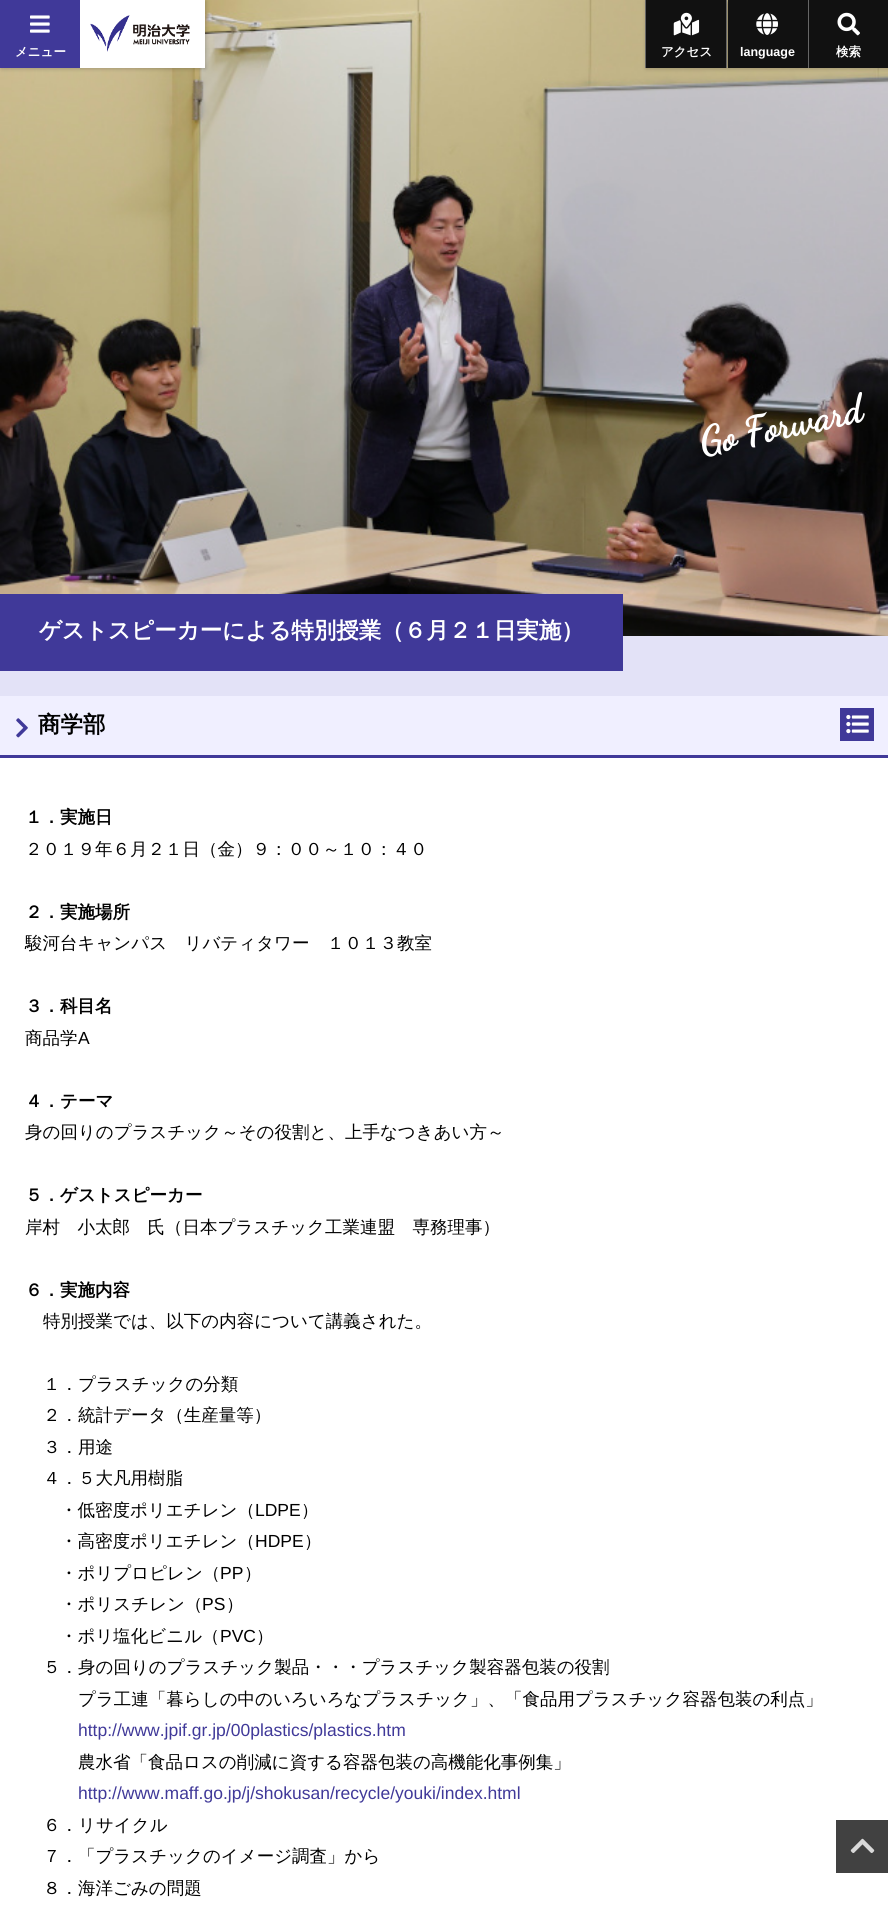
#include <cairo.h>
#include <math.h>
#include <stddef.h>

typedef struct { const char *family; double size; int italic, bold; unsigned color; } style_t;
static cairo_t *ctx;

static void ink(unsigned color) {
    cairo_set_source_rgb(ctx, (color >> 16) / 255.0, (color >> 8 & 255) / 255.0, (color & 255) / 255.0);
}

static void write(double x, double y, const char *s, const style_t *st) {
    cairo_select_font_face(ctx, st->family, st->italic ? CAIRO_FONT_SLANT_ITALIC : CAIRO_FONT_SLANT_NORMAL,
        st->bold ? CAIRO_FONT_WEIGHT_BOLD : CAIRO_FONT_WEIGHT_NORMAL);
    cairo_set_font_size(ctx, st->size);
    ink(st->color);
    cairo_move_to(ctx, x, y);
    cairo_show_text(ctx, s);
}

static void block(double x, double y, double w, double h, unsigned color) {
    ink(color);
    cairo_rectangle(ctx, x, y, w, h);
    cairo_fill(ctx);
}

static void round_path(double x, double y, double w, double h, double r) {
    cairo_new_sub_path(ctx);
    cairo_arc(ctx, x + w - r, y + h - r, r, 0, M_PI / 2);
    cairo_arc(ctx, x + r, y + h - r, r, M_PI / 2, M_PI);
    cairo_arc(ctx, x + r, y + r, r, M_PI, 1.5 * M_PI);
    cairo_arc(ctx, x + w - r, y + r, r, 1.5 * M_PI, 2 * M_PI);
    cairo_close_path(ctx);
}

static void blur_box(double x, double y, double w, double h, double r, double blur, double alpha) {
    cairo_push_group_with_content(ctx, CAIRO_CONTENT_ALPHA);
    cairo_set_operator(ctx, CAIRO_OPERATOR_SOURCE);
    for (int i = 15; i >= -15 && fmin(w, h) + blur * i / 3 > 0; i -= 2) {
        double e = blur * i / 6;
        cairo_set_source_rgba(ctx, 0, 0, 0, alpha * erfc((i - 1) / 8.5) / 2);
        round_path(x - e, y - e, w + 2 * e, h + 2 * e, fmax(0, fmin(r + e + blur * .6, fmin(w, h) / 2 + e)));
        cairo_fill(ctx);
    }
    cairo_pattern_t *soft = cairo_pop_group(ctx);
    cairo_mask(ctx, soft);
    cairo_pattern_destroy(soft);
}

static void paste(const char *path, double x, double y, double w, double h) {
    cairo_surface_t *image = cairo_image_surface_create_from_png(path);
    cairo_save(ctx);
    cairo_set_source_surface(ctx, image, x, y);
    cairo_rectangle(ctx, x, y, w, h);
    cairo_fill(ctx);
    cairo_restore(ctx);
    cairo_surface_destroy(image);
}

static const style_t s1 = {"WenQuanYi Zen Hei", 12.5, 0, 1, 0xffffff};
static const style_t s2 = {"Liberation Sans", 12.5, 0, 1, 0xffffff};
static const style_t s3 = {"Dancing Script", 38.75, 0, 1, 0xffffff};
static const style_t s4 = {"WenQuanYi Zen Hei", 22.5, 0, 1, 0xffffff};
static const style_t s5 = {"WenQuanYi Zen Hei", 22.5, 0, 1, 0x000000};
static const style_t s6 = {"WenQuanYi Zen Hei", 17.5, 0, 1, 0x000000};
static const style_t s7 = {"WenQuanYi Zen Hei Medium", 17.5, 0, 0, 0x000000};
static const style_t s8 = {"Liberation Sans", 17.5, 0, 0, 0x000000};
static const style_t s9 = {"Liberation Sans", 17.5, 0, 0, 0x403999};

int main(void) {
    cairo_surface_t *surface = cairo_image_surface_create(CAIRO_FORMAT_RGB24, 888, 1924);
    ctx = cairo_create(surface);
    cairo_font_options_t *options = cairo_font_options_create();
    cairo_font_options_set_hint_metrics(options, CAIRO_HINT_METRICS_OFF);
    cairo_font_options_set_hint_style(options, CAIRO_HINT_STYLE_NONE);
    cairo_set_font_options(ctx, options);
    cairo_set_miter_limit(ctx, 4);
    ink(0xffffff);
    cairo_paint(ctx);
    paste("pic6.png", 0, 0, 888, 636);
    ink(0x000000);
    blur_box(1, 1, 205, 68, 0, 2, 0.2);
    block(0, 0, 80, 68, 0x403999);
    paste("pic1.png", 30, 15, 20, 18);
    write(15, 56, "メニュー", &s1);
    block(80, 0, 125, 68, 0xffffff);
    paste("pic2.png", 90, 15, 100, 37);
    ink(0x000000);
    blur_box(646, 1, 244, 68, 0, 2, 0.2);
    block(645, 0, 1, 68, 0x666666);
    block(646, 0, 80, 68, 0x111111);
    paste("pic3.png", 673, 12, 27, 24);
    write(661, 56, "アクセス", &s1);
    block(726, 0, 1, 68, 0x666666);
    block(728, 0, 80, 68, 0x111111);
    paste("pic4.png", 756, 13, 22, 22);
    write(740, 56, "language", &s2);
    block(808, 0, 1, 68, 0x666666);
    block(809, 0, 79, 68, 0x111111);
    paste("pic5.png", 837, 12, 23, 24);
    write(836, 56, "検索", &s1);
    cairo_save(ctx);
    cairo_translate(ctx, 703, 455);
    cairo_rotate(ctx, -12 * M_PI / 180);
    write(0, 0, "Go Forward", &s3);
    cairo_restore(ctx);
    block(0, 636, 888, 60, 0xe3e2f7);
    block(0, 594, 623, 77, 0x403999);
    write(39, 638, "ゲストスピーカーによる特別授業（６月２１日実施）", &s4);
    block(0, 696, 888, 59, 0xf0efff);
    block(0, 755, 888, 3, 0x403999);
    paste("pic7.png", 16, 718, 12, 20);
    write(38, 732, "商学部", &s5);
    block(840, 708, 34, 33, 0x403999);
    paste("pic8.png", 846, 714, 23, 20);
    write(25, 823, "１．実施日", &s6);
    write(25, 855, "２０１９年６月２１日（金）９：００～１０：４０", &s7);
    write(25, 918, "２．実施場所", &s6);
    write(25, 949, "駿河台キャンパス　リバティタワー　１０１３教室", &s7);
    write(25, 1012, "３．科目名", &s6);
    write(25, 1044, "商品学", &s7);
    write(78, 1044, "A", &s8);
    write(25, 1107, "４．テーマ", &s6);
    write(25, 1138, "身の回りのプラスチック～その役割と、上手なつきあい方～", &s7);
    write(25, 1201, "５．ゲストスピーカー", &s6);
    write(25, 1233, "岸村　小太郎　氏（日本プラスチック工業連盟　専務理事）", &s7);
    write(25, 1296, "６．実施内容", &s6);
    write(43, 1327, "特別授業では、以下の内容について講義された。", &s7);
    write(43, 1390, "１．プラスチックの分類", &s7);
    write(43, 1421, "２．統計データ（生産量等）", &s7);
    write(43, 1453, "３．用途", &s7);
    write(43, 1484, "４．５大凡用樹脂", &s7);
    write(60, 1516, "・低密度ポリエチレン（", &s7);
    write(255, 1516, "LDPE", &s8);
    write(301, 1516, "）", &s7);
    write(60, 1547, "・高密度ポリエチレン（", &s7);
    write(255, 1547, "HDPE", &s8);
    write(304, 1547, "）", &s7);
    write(60, 1579, "・ポリプロピレン（", &s7);
    write(220, 1579, "PP", &s8);
    write(244, 1579, "）", &s7);
    write(60, 1610, "・ポリスチレン（", &s7);
    write(202, 1610, "PS", &s8);
    write(226, 1610, "）", &s7);
    write(60, 1642, "・ポリ塩化ビニル（", &s7);
    write(220, 1642, "PVC", &s8);
    write(256, 1642, "）", &s7);
    write(43, 1673, "５．身の回りのプラスチック製品・・・プラスチック製容器包装の役割", &s7);
    write(78, 1705, "プラ工連「暮らしの中のいろいろなプラスチック」、「食品用プラスチック容器包装の利点」", &s7);
    write(78, 1736, "http://www.jpif.gr.jp/00plastics/plastics.htm", &s9);
    write(78, 1768, "農水省「食品ロスの削減に資する容器包装の高機能化事例集」", &s7);
    write(78, 1799, "http://www.maff.go.jp/j/shokusan/recycle/youki/index.html", &s9);
    write(43, 1831, "６．リサイクル", &s7);
    write(43, 1862, "７．「プラスチックのイメージ調査」から", &s7);
    write(43, 1894, "８．海洋ごみの問題", &s7);
    block(836, 1820, 52, 53, 0x414141);
    paste("pic9.png", 850, 1838, 25, 15);
    cairo_surface_write_to_png(surface, "screenshot.png");
    cairo_font_options_destroy(options);
    cairo_destroy(ctx);
    cairo_surface_destroy(surface);
    return 0;
}
